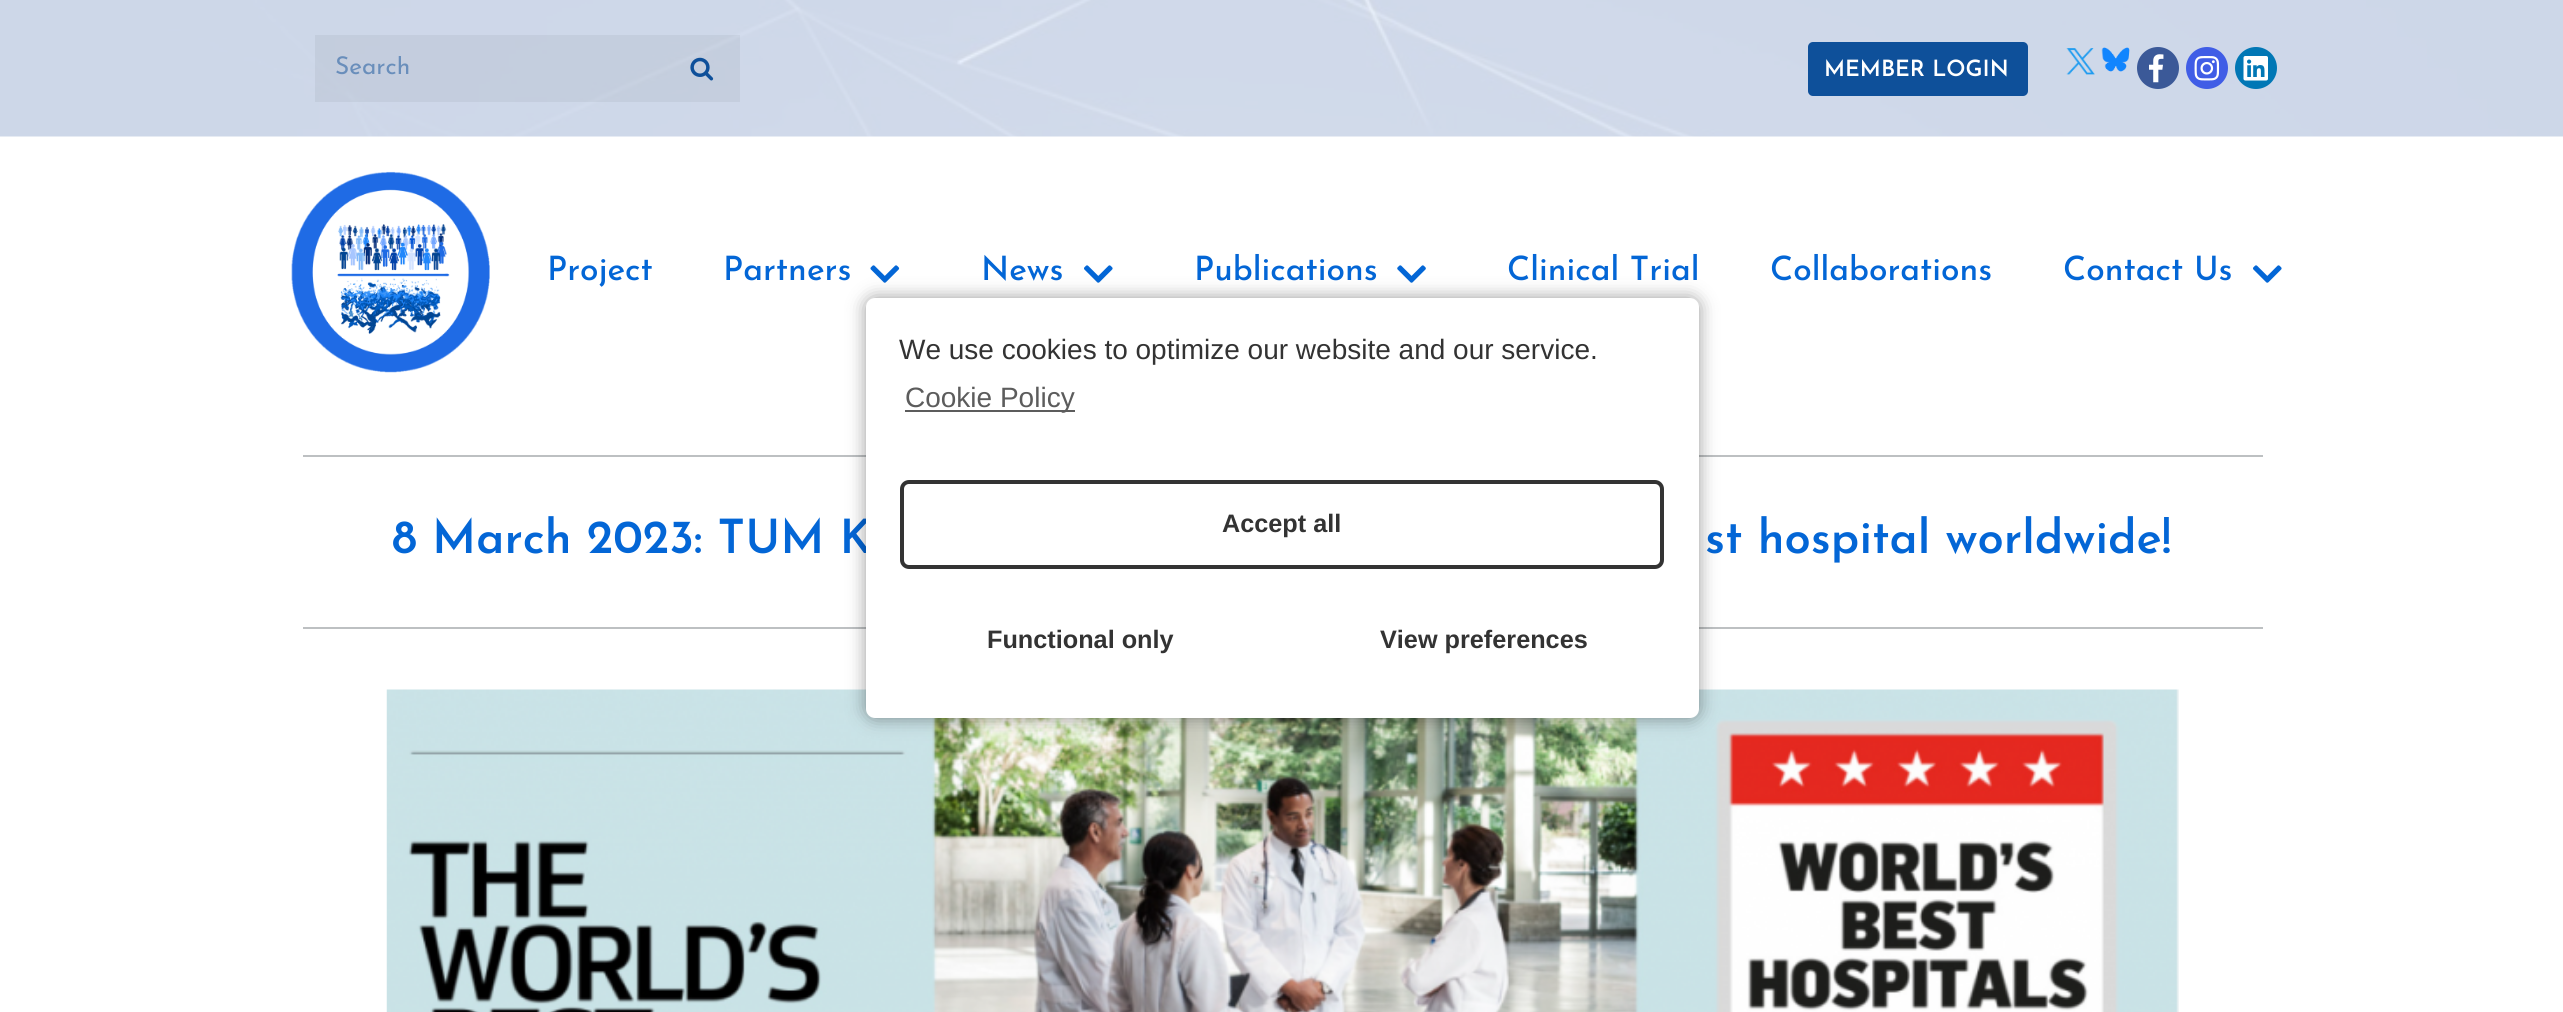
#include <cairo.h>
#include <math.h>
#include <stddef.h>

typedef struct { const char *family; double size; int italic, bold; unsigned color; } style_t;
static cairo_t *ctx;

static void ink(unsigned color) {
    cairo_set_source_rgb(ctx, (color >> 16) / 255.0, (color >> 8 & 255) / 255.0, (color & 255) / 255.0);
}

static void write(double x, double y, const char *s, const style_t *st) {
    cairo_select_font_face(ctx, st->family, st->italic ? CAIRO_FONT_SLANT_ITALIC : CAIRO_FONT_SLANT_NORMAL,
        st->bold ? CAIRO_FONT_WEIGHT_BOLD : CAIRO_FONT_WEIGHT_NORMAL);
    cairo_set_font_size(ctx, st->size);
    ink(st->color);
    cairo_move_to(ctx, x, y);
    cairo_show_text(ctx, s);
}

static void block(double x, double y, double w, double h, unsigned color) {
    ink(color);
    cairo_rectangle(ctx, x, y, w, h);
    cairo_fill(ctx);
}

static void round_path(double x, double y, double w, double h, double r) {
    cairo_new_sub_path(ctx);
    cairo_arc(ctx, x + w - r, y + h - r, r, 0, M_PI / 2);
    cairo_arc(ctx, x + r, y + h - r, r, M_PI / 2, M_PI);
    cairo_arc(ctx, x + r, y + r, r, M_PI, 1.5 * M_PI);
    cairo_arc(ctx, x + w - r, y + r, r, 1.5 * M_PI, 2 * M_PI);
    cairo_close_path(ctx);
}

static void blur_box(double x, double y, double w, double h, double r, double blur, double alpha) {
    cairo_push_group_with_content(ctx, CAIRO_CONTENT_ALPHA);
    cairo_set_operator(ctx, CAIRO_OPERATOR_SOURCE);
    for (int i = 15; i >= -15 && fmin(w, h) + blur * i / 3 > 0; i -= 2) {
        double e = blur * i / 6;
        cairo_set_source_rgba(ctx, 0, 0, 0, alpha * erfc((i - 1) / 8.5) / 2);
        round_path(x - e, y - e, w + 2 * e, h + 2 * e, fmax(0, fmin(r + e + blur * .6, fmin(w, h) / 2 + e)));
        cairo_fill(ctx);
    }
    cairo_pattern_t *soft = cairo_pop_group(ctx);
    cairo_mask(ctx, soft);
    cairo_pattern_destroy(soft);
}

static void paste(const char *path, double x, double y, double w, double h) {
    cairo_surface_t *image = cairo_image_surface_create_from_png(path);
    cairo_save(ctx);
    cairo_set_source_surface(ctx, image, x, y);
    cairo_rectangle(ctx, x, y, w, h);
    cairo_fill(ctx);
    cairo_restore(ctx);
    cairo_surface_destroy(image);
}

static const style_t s1 = {"Josefin Sans", 24.5, 0, 0, 0x698ebb};
static const style_t s2 = {"Josefin Sans SemiBold", 22.5, 0, 0, 0xffffff};
static const style_t s3 = {"Josefin Sans Medium", 33.5, 0, 0, 0x0366d6};
static const style_t s4 = {"Josefin Sans SemiBold", 47.25, 0, 0, 0x0366d6};
static const style_t s5 = {"Liberation Sans", 28, 0, 0, 0x333333};
static const style_t s6 = {"Liberation Sans", 28, 0, 0, 0x5c5c5c};
static const style_t s7 = {"Liberation Sans", 25.25, 0, 1, 0x333333};

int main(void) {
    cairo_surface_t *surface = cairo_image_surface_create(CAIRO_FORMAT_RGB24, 2563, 1012);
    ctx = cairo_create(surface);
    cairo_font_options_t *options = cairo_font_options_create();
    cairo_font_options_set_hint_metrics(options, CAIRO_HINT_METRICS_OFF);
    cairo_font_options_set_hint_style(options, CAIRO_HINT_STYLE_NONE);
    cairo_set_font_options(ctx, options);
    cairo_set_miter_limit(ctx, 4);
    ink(0xffffff);
    cairo_paint(ctx);
    paste("pic1.png", 0, 0, 2563, 137);
    cairo_set_source_rgba(ctx, 0, 0, 0, 0.05);
    cairo_rectangle(ctx, 315, 35, 425, 67);
    cairo_fill(ctx);
    cairo_save(ctx);
    cairo_rectangle(ctx, 336, 56, 301, 26);
    cairo_clip(ctx);
    write(335, 74, "Search", &s1);
    cairo_restore(ctx);
    paste("pic2.png", 690, 57, 24, 24);
    ink(0x0e509a);
    round_path(1808, 42, 220, 54, 5);
    cairo_fill(ctx);
    write(1824, 76, "MEMBER LOGIN", &s2);
    paste("pic3.png", 2066, 48, 29, 27);
    paste("pic4.png", 2101, 47, 29, 25);
    ink(0x3b5998);
    cairo_arc(ctx, 2158, 68, 21, 0, 2 * M_PI);
    cairo_fill(ctx);
    paste("pic5.png", 2149, 54, 15, 29);
    ink(0x405de6);
    cairo_arc(ctx, 2207, 68, 21, 0, 2 * M_PI);
    cairo_fill(ctx);
    paste("pic6.png", 2194, 56, 26, 25);
    ink(0x0177b5);
    cairo_arc(ctx, 2256, 68, 21, 0, 2 * M_PI);
    cairo_fill(ctx);
    paste("pic7.png", 2243, 56, 25, 25);
    paste("pic8.png", 291, 171, 199, 202);
    write(547, 280, "Project", &s3);
    write(723, 280, "Partners", &s3);
    paste("pic9.png", 870, 265, 30, 18);
    write(981, 280, "News", &s3);
    paste("pic10.png", 1084, 265, 29, 18);
    write(1194, 280, "Publications", &s3);
    paste("pic11.png", 1397, 265, 29, 18);
    write(1507, 280, "Clinical Trial", &s3);
    write(1770, 280, "Collaborations", &s3);
    write(2063, 280, "Contact Us", &s3);
    paste("pic10.png", 2253, 265, 29, 18);
    block(303, 455, 1960, 2, 0xbdc0c2);
    write(392, 553, "8 March 2023: TUM K", &s4);
    write(1705, 553, "st hospital worldwide!", &s4);
    block(303, 627, 1960, 2, 0xbdc0c2);
    paste("pic12.png", 386, 689, 1793, 323);
    ink(0x000000);
    blur_box(866, 298, 833, 420, 9, 9, 0.4);
    ink(0xffffff);
    round_path(866, 298, 833, 420, 9);
    cairo_fill(ctx);
    write(899, 359, "We use cookies to optimize our website and our service.", &s5);
    block(905, 410, 170, 2, 0x5c5c5c);
    write(905, 407, "Cookie Policy", &s6);
    round_path(902, 482, 760, 85, 7);
    ink(0x333333);
    cairo_set_line_width(ctx, 4);
    cairo_stroke(ctx);
    write(1222, 532, "Accept all", &s7);
    write(987, 648, "Functional only", &s7);
    write(1380, 648, "View preferences", &s7);
    cairo_surface_write_to_png(surface, "screenshot.png");
    cairo_font_options_destroy(options);
    cairo_destroy(ctx);
    cairo_surface_destroy(surface);
    return 0;
}
